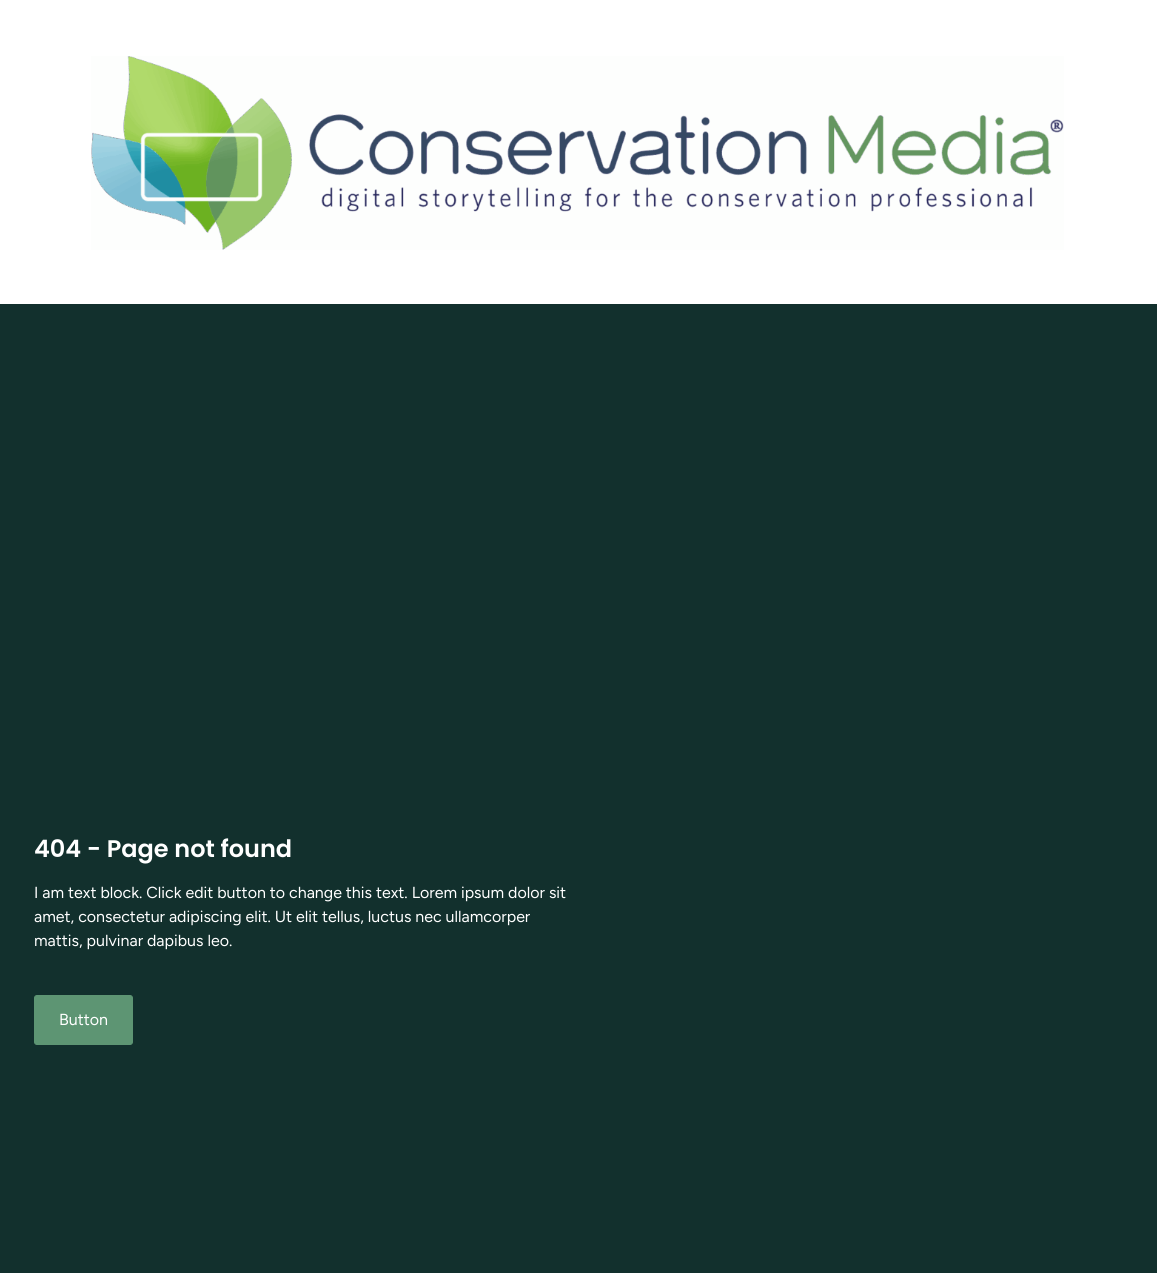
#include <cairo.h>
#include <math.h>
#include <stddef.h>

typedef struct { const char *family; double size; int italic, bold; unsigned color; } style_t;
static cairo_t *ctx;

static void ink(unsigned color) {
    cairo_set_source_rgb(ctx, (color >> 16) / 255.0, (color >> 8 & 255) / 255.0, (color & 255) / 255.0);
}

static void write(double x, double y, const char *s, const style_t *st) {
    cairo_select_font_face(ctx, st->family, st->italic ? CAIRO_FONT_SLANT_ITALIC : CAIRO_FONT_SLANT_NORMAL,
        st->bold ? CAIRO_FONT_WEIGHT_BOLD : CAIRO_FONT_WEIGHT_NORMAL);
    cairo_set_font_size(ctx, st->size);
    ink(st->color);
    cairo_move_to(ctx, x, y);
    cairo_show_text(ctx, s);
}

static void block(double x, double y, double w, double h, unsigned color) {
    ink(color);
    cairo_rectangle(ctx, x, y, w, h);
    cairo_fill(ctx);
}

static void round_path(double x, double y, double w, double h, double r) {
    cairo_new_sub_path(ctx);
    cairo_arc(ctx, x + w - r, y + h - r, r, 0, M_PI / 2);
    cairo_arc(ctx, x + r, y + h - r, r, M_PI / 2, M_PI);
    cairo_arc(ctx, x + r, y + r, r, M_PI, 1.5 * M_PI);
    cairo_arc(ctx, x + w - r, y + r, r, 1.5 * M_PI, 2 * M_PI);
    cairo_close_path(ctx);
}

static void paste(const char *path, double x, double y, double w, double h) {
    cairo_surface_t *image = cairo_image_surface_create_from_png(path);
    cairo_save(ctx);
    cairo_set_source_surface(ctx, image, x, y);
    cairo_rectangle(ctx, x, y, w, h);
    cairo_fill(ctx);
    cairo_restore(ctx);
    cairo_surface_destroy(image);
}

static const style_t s1 = {"Poppins SemiBold", 24, 0, 0, 0xffffff};
static const style_t s2 = {"Figtree", 16, 0, 0, 0xffffff};

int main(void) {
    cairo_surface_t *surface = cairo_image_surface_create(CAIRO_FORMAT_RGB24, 1157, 1273);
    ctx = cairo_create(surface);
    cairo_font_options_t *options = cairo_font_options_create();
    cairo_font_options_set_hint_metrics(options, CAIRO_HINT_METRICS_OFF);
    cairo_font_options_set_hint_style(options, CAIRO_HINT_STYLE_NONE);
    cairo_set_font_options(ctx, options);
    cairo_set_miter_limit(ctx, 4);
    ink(0xffffff);
    cairo_paint(ctx);
    paste("pic1.png", 91, 56, 973, 194);
    block(0, 304, 1157, 969, 0x12302d);
    write(34, 857, "404 - Page not found", &s1);
    write(34, 898, "I am text block. Click edit button to change this text. Lorem ipsum dolor sit", &s2);
    write(34, 922, "amet, consectetur adipiscing elit. Ut elit tellus, luctus nec ullamcorper", &s2);
    write(34, 946, "mattis, pulvinar dapibus leo.", &s2);
    ink(0x5d9573);
    round_path(34.5, 995.5, 98, 49, 2.5);
    cairo_fill_preserve(ctx);
    cairo_set_line_width(ctx, 1);
    cairo_stroke(ctx);
    write(59, 1025, "Button", &s2);
    cairo_surface_write_to_png(surface, "screenshot.png");
    cairo_font_options_destroy(options);
    cairo_destroy(ctx);
    cairo_surface_destroy(surface);
    return 0;
}
